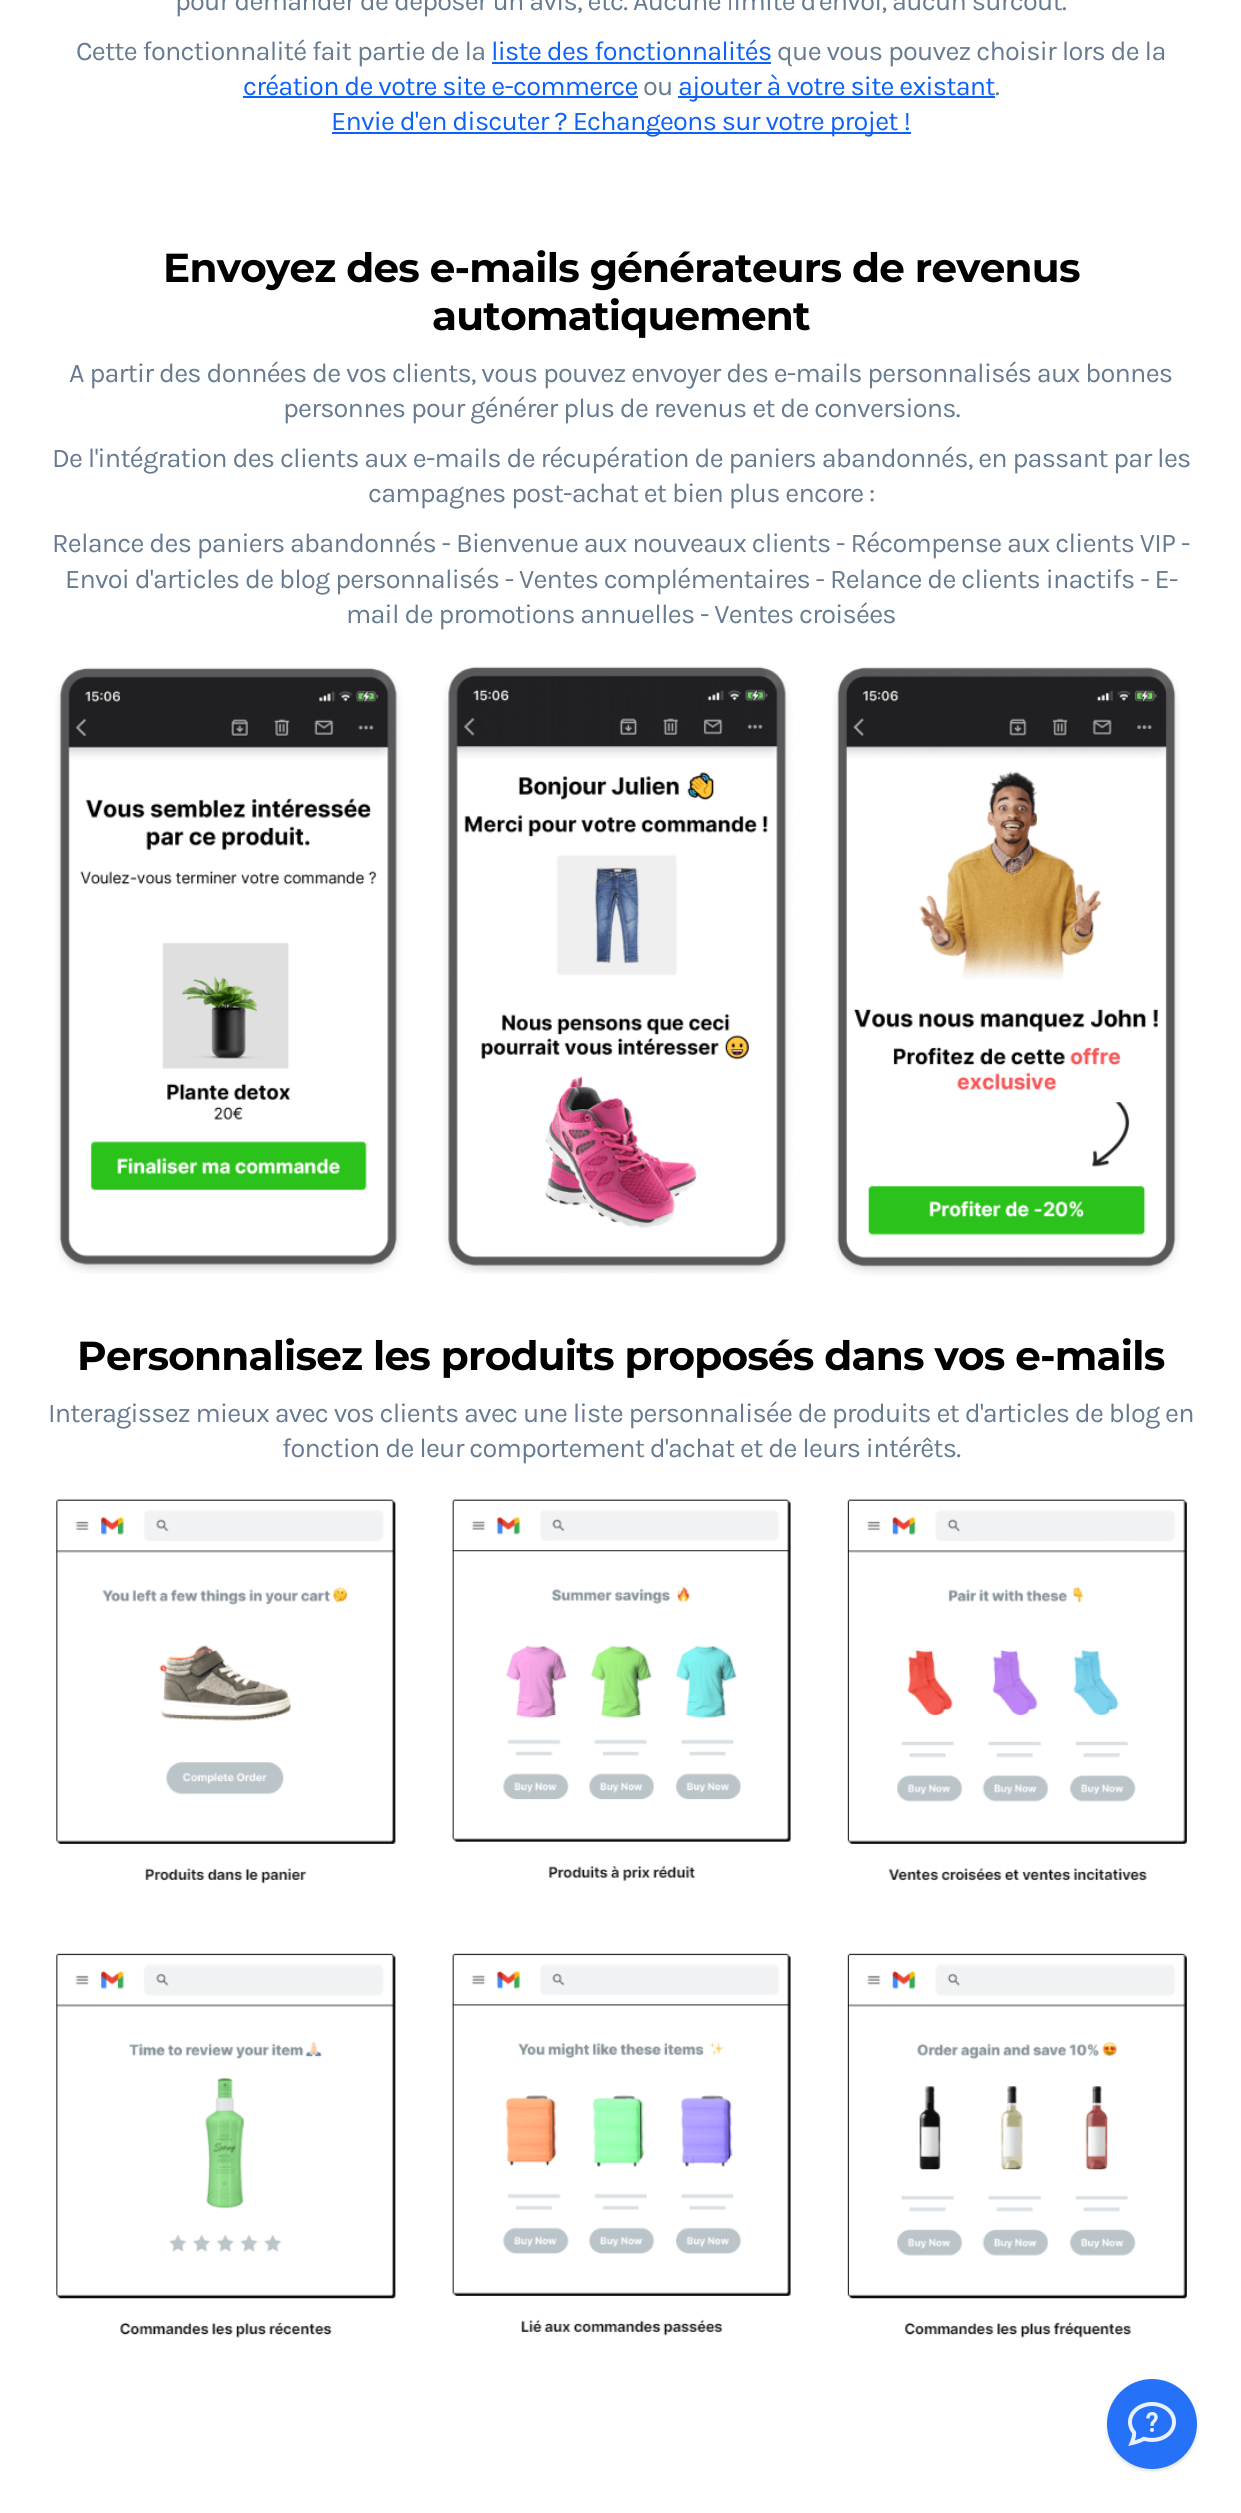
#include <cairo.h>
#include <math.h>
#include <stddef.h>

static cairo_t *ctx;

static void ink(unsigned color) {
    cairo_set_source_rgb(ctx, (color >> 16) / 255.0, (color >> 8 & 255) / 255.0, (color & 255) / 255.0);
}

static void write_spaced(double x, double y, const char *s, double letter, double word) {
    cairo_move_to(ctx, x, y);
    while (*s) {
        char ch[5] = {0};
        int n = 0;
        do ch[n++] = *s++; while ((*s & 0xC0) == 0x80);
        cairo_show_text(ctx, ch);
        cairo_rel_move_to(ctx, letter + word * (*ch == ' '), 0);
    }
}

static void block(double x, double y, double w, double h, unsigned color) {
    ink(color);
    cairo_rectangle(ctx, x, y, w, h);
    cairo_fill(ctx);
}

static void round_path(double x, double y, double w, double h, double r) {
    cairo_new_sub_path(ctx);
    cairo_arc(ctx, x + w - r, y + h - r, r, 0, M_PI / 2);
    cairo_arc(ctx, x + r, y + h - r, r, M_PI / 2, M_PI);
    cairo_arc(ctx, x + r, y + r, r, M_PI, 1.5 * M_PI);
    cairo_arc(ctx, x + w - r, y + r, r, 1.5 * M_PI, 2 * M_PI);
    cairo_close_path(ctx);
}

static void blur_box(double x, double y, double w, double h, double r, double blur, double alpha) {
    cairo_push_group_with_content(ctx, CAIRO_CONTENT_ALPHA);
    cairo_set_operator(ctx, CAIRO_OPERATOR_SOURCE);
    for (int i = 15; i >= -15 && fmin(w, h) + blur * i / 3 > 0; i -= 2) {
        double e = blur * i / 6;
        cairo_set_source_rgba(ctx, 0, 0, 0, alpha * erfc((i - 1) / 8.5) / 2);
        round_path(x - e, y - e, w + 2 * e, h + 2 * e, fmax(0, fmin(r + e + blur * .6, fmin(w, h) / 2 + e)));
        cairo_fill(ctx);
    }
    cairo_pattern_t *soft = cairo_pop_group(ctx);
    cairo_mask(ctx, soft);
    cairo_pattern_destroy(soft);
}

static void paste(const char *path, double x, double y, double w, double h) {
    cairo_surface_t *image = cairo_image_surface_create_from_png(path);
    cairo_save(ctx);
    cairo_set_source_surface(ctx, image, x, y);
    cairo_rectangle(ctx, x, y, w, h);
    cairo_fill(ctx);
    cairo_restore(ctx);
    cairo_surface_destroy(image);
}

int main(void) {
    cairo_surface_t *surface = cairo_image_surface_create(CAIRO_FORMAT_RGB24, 1241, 2513);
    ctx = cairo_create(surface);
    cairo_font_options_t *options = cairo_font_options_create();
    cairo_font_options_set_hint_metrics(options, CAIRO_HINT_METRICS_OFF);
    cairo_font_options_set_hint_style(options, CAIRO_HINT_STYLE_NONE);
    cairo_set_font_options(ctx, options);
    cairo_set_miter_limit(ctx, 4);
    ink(0xffffff);
    cairo_paint(ctx);
    cairo_select_font_face(ctx, "Karla", CAIRO_FONT_SLANT_NORMAL, CAIRO_FONT_WEIGHT_NORMAL);
    cairo_set_font_size(ctx, 27);
    ink(0x667a90);
    write_spaced(175, 10, "pour demander de déposer un avis, etc. Aucune limite d'envoi, aucun surcoût.", -0.75, 0);
    write_spaced(76, 60, "Cette fonctionnalité fait partie de la", -0.75, 0);
    ink(0x0d61f7);
    write_spaced(491, 60, "liste des fonctionnalités", -0.75, 0);
    block(492, 62, 279, 2, 0x0d61f7);
    ink(0x667a90);
    write_spaced(777, 60, "que vous pouvez choisir lors de la", -0.75, 0);
    ink(0x0d61f7);
    write_spaced(243, 95, "création de votre site e-commerce", -0.75, 0);
    block(243, 96, 395, 2, 0x0d61f7);
    ink(0x667a90);
    write_spaced(643, 95, "ou", -0.75, 0);
    block(678, 96, 317, 2, 0x0d61f7);
    write_spaced(678, 95, "ajouter à votre site existant", -0.75, 0);
    ink(0x667a90);
    write_spaced(995, 95, ".", -0.75, 0);
    block(332, 132, 579, 2, 0x0d61f7);
    write_spaced(331, 130, "Envie d'en discuter ? Echangeons sur votre projet !", -0.75, 0);
    cairo_select_font_face(ctx, "Montserrat", CAIRO_FONT_SLANT_NORMAL, CAIRO_FONT_WEIGHT_BOLD);
    cairo_set_font_size(ctx, 40.5);
    ink(0x000000);
    write_spaced(163, 282, "Envoyez des e-mails générateurs de revenus", -0.75, 0);
    write_spaced(432, 330, "automatiquement", -0.75, 0);
    cairo_select_font_face(ctx, "Karla", CAIRO_FONT_SLANT_NORMAL, CAIRO_FONT_WEIGHT_NORMAL);
    cairo_set_font_size(ctx, 27);
    ink(0x667a90);
    write_spaced(69, 382, "A partir des données de vos clients, vous pouvez envoyer des e-mails personnalisés aux bonnes", -0.75, 0);
    write_spaced(283, 417, "personnes pour générer plus de revenus et de conversions.", -0.75, 0);
    write_spaced(52, 467, "De l'intégration des clients aux e-mails de récupération de paniers abandonnés, en passant par les", -0.75, 0);
    write_spaced(368, 502, "campagnes post-achat et bien plus encore :", -0.75, 0);
    write_spaced(52, 552, "Relance des paniers abandonnés - Bienvenue aux nouveaux clients - Récompense aux clients VIP -", -0.75, 0);
    write_spaced(65, 588, "Envoi d'articles de blog personnalisés - Ventes complémentaires - Relance de clients inactifs - E-", -0.75, 0);
    write_spaced(346, 623, "mail de promotions annuelles - Ventes croisées", -0.75, 0);
    paste("pic1.png", 55, 666, 1125, 611);
    cairo_select_font_face(ctx, "Montserrat", CAIRO_FONT_SLANT_NORMAL, CAIRO_FONT_WEIGHT_BOLD);
    cairo_set_font_size(ctx, 40.5);
    ink(0x000000);
    write_spaced(77, 1370, "Personnalisez les produits proposés dans vos e-mails", -0.75, 0);
    cairo_select_font_face(ctx, "Karla", CAIRO_FONT_SLANT_NORMAL, CAIRO_FONT_WEIGHT_NORMAL);
    cairo_set_font_size(ctx, 27);
    ink(0x667a90);
    write_spaced(48, 1422, "Interagissez mieux avec vos clients avec une liste personnalisée de produits et d'articles de blog en", -0.75, 0);
    write_spaced(282, 1457, "fonction de leur comportement d'achat et de leurs intérêts.", -0.75, 0);
    paste("pic2.png", 56, 1499, 1131, 839);
    ink(0x1a1a1a);
    blur_box(1107, 2381, 90, 90, 45, 1.5, 0.06);
    blur_box(1107, 2381, 90, 90, 45, 2, 0.1);
    ink(0x2571f8);
    cairo_arc(ctx, 1152, 2424, 45, 0, 2 * M_PI);
    cairo_fill(ctx);
    paste("pic3.png", 1128, 2402, 48, 44);
    cairo_surface_write_to_png(surface, "screenshot.png");
    cairo_font_options_destroy(options);
    cairo_destroy(ctx);
    cairo_surface_destroy(surface);
    return 0;
}
